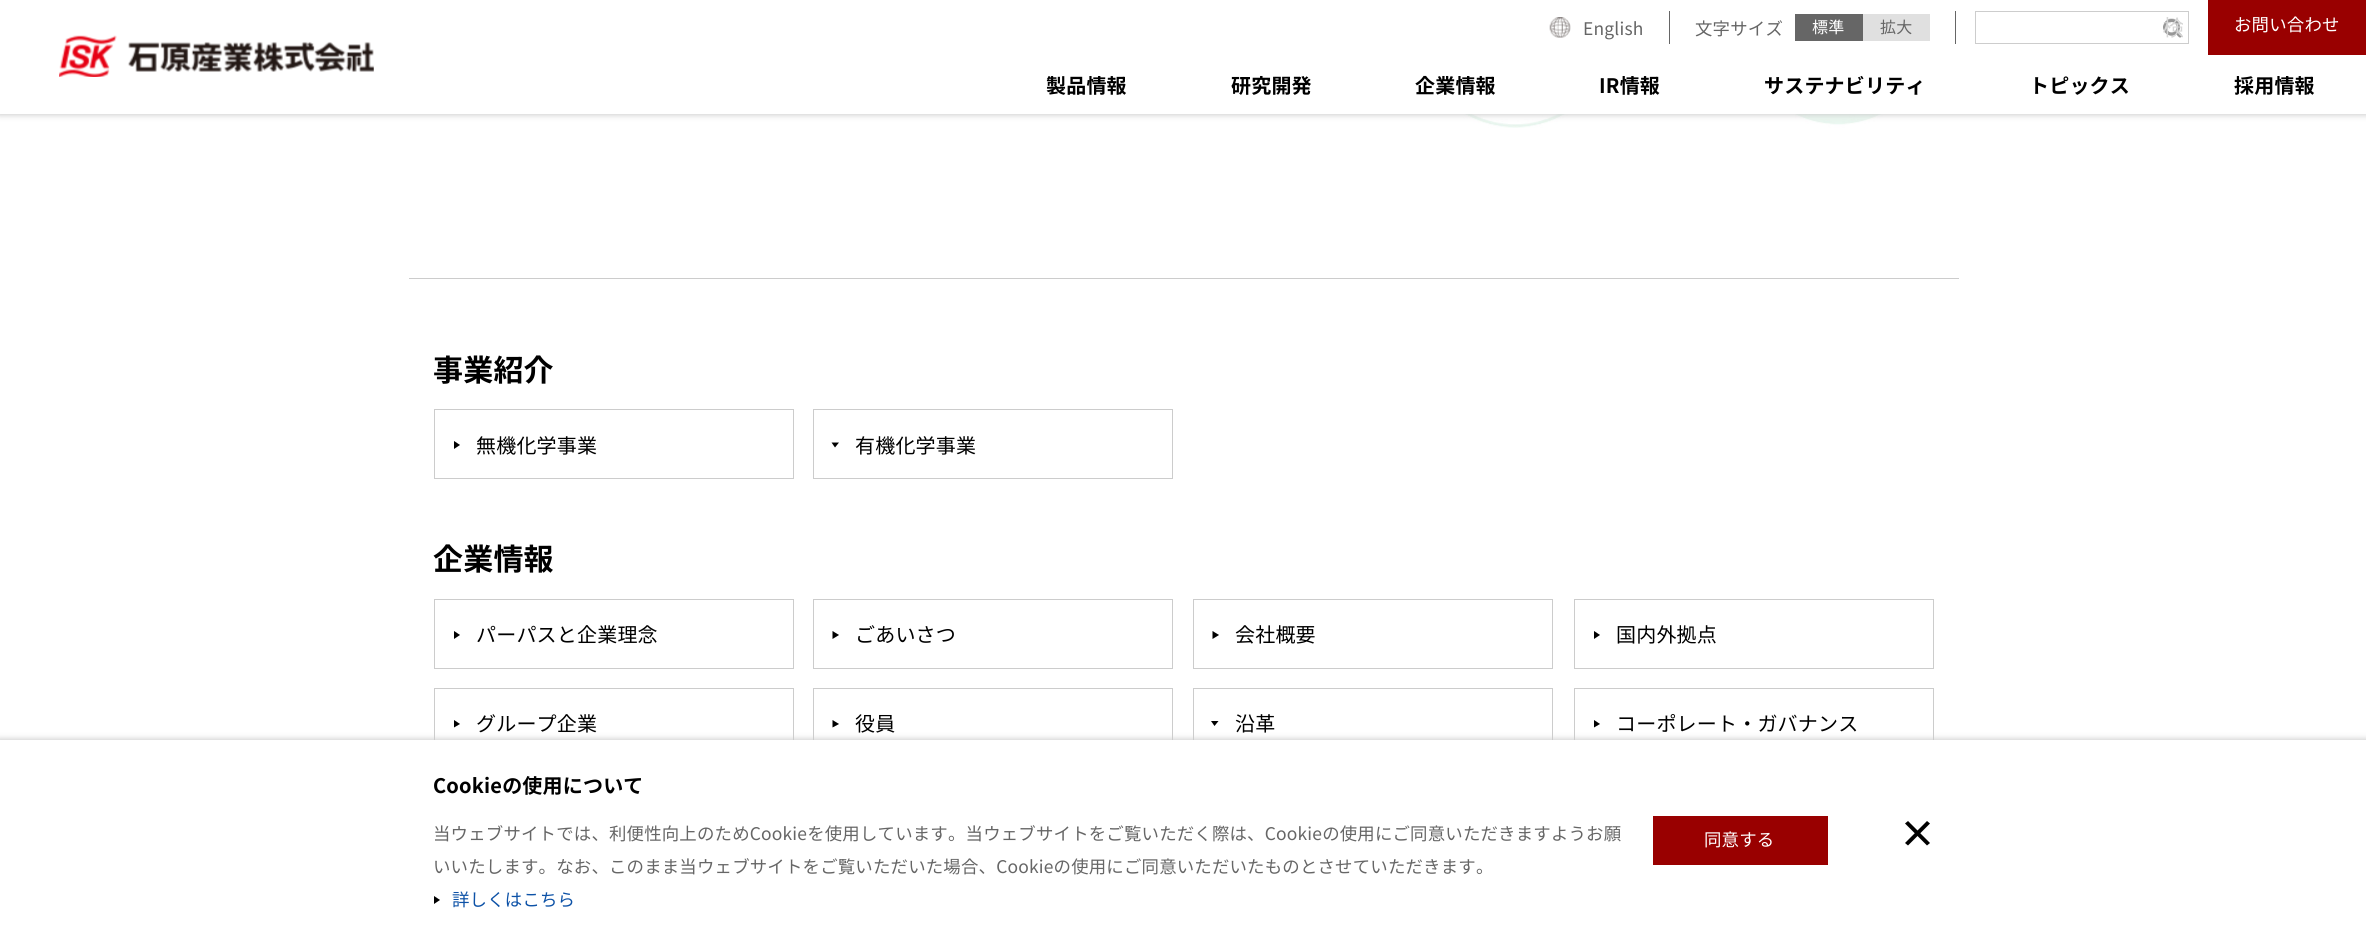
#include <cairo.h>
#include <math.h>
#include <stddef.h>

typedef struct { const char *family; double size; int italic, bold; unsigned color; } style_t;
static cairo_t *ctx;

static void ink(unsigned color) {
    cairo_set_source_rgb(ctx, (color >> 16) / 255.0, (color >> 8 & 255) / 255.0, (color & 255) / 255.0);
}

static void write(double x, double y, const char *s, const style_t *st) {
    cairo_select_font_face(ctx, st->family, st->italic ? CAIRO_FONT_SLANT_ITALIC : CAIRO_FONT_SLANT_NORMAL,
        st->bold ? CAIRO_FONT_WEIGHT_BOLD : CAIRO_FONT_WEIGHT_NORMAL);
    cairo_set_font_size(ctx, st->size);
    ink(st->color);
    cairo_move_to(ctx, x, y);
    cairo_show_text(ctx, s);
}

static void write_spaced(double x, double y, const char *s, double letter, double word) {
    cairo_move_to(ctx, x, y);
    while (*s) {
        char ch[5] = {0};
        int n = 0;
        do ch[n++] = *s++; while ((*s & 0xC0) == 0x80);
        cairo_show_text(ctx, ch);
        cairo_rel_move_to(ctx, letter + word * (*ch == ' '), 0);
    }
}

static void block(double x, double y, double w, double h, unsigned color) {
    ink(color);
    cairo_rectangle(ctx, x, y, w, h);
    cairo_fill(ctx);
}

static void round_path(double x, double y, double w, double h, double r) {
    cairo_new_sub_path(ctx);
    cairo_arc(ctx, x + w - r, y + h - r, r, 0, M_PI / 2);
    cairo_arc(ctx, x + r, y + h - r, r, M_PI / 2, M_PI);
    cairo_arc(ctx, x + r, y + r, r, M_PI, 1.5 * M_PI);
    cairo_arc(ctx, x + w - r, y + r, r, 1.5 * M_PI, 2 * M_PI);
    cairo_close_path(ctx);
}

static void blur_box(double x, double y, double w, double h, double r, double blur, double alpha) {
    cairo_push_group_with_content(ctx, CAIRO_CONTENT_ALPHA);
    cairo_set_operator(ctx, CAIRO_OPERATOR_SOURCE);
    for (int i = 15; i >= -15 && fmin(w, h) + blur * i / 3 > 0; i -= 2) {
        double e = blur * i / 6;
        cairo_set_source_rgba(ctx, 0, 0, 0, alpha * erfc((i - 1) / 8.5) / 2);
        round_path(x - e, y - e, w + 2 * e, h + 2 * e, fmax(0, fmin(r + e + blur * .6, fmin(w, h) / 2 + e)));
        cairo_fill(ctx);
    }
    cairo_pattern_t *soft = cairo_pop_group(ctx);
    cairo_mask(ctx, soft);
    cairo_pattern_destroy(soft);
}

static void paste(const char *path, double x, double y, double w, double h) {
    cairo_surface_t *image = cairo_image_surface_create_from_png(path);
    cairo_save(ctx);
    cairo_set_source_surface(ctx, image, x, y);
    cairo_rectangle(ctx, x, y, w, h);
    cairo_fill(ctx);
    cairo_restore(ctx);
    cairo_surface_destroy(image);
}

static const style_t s1 = {"WenQuanYi Zen Hei Medium", 22, 0, 0, 0xd6d6d6};

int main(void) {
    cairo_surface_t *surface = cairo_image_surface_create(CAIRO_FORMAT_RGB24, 2366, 939);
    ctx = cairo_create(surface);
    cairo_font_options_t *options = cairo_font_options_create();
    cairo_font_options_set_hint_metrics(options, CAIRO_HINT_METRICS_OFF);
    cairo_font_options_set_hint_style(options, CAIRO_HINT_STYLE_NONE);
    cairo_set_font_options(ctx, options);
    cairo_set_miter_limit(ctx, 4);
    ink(0xffffff);
    cairo_paint(ctx);
    paste("pic4.png", 1416, 114, 518, 14);
    ink(0xcccccc);
    blur_box(-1, -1, 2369, 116, 0, 3, 1);
    block(0, 0, 2366, 114, 0xffffff);
    paste("pic1.png", 59, 35, 315, 42);
    paste("pic2.png", 1549, 17, 22, 21);
    cairo_select_font_face(ctx, "Noto Sans JP", CAIRO_FONT_SLANT_NORMAL, CAIRO_FONT_WEIGHT_NORMAL);
    cairo_set_font_size(ctx, 17.4);
    ink(0x666666);
    write_spaced(1583, 35, "English", 0.2, 0);
    block(1669, 11, 1, 33, 0x666666);
    write_spaced(1695, 35, "文字サイズ", 0.2, 0);
    block(1795, 14, 68, 27, 0x666666);
    cairo_set_font_size(ctx, 16);
    ink(0xffffff);
    write_spaced(1812, 33, "標準", 0.2, 0);
    block(1863, 14, 67, 27, 0xe0e0e0);
    ink(0x666666);
    write_spaced(1880, 33, "拡大", 0.2, 0);
    block(1955, 11, 1, 33, 0x666666);
    cairo_rectangle(ctx, 1975.5, 11.5, 213, 32);
    ink(0xcdcdcd);
    cairo_set_line_width(ctx, 1);
    cairo_stroke(ctx);
    paste("pic3.png", 2163, 18, 19, 20);
    cairo_save(ctx);
    cairo_rectangle(ctx, 2163, 13, 20, 30);
    cairo_clip(ctx);
    write(2163, 35, "検", &s1);
    cairo_restore(ctx);
    block(2208, 0, 158, 55, 0x990000);
    cairo_set_font_size(ctx, 17.4);
    ink(0xffffff);
    write_spaced(2234, 31, "お問い合わせ", 0.2, 0);
    cairo_select_font_face(ctx, "Noto Sans JP", CAIRO_FONT_SLANT_NORMAL, CAIRO_FONT_WEIGHT_BOLD);
    cairo_set_font_size(ctx, 20);
    ink(0x000000);
    write_spaced(1046, 93, "製品情報", 0.2, 0);
    write_spaced(1231, 93, "研究開発", 0.2, 0);
    write_spaced(1415, 93, "企業情報", 0.2, 0);
    write_spaced(1599, 93, "IR情報", 0.2, 0);
    write_spaced(1764, 93, "サステナビリティ", 0.2, 0);
    write_spaced(2029, 93, "トピックス", 0.2, 0);
    write_spaced(2234, 93, "採用情報", 0.2, 0);
    block(409, 278, 1550, 1, 0xcccccc);
    cairo_set_font_size(ctx, 30);
    ink(0x000000);
    write_spaced(433, 381, "事業紹介", 0.2, 0);
    cairo_rectangle(ctx, 434.5, 409.5, 359, 69);
    ink(0xcccccc);
    cairo_stroke(ctx);
    ink(0x000000);
    cairo_new_path(ctx);
    cairo_move_to(ctx, 454, 449);
    cairo_line_to(ctx, 454, 441);
    cairo_line_to(ctx, 460, 445);
    cairo_close_path(ctx);
    cairo_fill(ctx);
    cairo_select_font_face(ctx, "Noto Sans JP", CAIRO_FONT_SLANT_NORMAL, CAIRO_FONT_WEIGHT_NORMAL);
    cairo_set_font_size(ctx, 20);
    write_spaced(476, 453, "無機化学事業", 0.2, 0);
    cairo_rectangle(ctx, 813.5, 409.5, 359, 69);
    ink(0xcccccc);
    cairo_stroke(ctx);
    ink(0x000000);
    cairo_new_path(ctx);
    cairo_move_to(ctx, 831.5, 442.5);
    cairo_line_to(ctx, 839, 442.5);
    cairo_line_to(ctx, 835, 447.5);
    cairo_close_path(ctx);
    cairo_fill(ctx);
    write_spaced(855, 453, "有機化学事業", 0.2, 0);
    cairo_select_font_face(ctx, "Noto Sans JP", CAIRO_FONT_SLANT_NORMAL, CAIRO_FONT_WEIGHT_BOLD);
    cairo_set_font_size(ctx, 30);
    write_spaced(433, 570, "企業情報", 0.2, 0);
    cairo_rectangle(ctx, 434.5, 599.5, 359, 69);
    ink(0xcccccc);
    cairo_stroke(ctx);
    ink(0x000000);
    cairo_new_path(ctx);
    cairo_move_to(ctx, 454, 639);
    cairo_line_to(ctx, 454, 631);
    cairo_line_to(ctx, 460, 635);
    cairo_close_path(ctx);
    cairo_fill(ctx);
    cairo_select_font_face(ctx, "Noto Sans JP", CAIRO_FONT_SLANT_NORMAL, CAIRO_FONT_WEIGHT_NORMAL);
    cairo_set_font_size(ctx, 20);
    write_spaced(476, 642, "パーパスと企業理念", 0.2, 0);
    cairo_rectangle(ctx, 813.5, 599.5, 359, 69);
    ink(0xcccccc);
    cairo_stroke(ctx);
    ink(0x000000);
    cairo_new_path(ctx);
    cairo_move_to(ctx, 832.5, 639);
    cairo_line_to(ctx, 832.5, 631);
    cairo_line_to(ctx, 839, 635);
    cairo_close_path(ctx);
    cairo_fill(ctx);
    write_spaced(855, 642, "ごあいさつ", 0.2, 0);
    cairo_rectangle(ctx, 1193.5, 599.5, 359, 69);
    ink(0xcccccc);
    cairo_stroke(ctx);
    ink(0x000000);
    cairo_new_path(ctx);
    cairo_move_to(ctx, 1212.5, 639);
    cairo_line_to(ctx, 1212.5, 631);
    cairo_line_to(ctx, 1219, 635);
    cairo_close_path(ctx);
    cairo_fill(ctx);
    write_spaced(1235, 642, "会社概要", 0.2, 0);
    cairo_rectangle(ctx, 1574.5, 599.5, 359, 69);
    ink(0xcccccc);
    cairo_stroke(ctx);
    ink(0x000000);
    cairo_new_path(ctx);
    cairo_move_to(ctx, 1594, 639);
    cairo_line_to(ctx, 1594, 631);
    cairo_line_to(ctx, 1600, 635);
    cairo_close_path(ctx);
    cairo_fill(ctx);
    write_spaced(1616, 642, "国内外拠点", 0.2, 0);
    cairo_rectangle(ctx, 434.5, 688.5, 359, 69);
    ink(0xcccccc);
    cairo_stroke(ctx);
    ink(0x000000);
    cairo_new_path(ctx);
    cairo_move_to(ctx, 454, 727.5);
    cairo_line_to(ctx, 454, 720);
    cairo_line_to(ctx, 460, 724);
    cairo_close_path(ctx);
    cairo_fill(ctx);
    write_spaced(476, 731, "グループ企業", 0.2, 0);
    cairo_rectangle(ctx, 813.5, 688.5, 359, 69);
    ink(0xcccccc);
    cairo_stroke(ctx);
    ink(0x000000);
    cairo_new_path(ctx);
    cairo_move_to(ctx, 832.5, 727.5);
    cairo_line_to(ctx, 832.5, 720);
    cairo_line_to(ctx, 839, 724);
    cairo_close_path(ctx);
    cairo_fill(ctx);
    write_spaced(855, 731, "役員", 0.2, 0);
    cairo_rectangle(ctx, 1193.5, 688.5, 359, 69);
    ink(0xcccccc);
    cairo_stroke(ctx);
    ink(0x000000);
    cairo_new_path(ctx);
    cairo_move_to(ctx, 1211, 721);
    cairo_line_to(ctx, 1218.5, 721);
    cairo_line_to(ctx, 1214.5, 726);
    cairo_close_path(ctx);
    cairo_fill(ctx);
    write_spaced(1235, 731, "沿革", 0.2, 0);
    cairo_rectangle(ctx, 1574.5, 688.5, 359, 69);
    ink(0xcccccc);
    cairo_stroke(ctx);
    ink(0x000000);
    cairo_new_path(ctx);
    cairo_move_to(ctx, 1594, 727.5);
    cairo_line_to(ctx, 1594, 720);
    cairo_line_to(ctx, 1600, 724);
    cairo_close_path(ctx);
    cairo_fill(ctx);
    write_spaced(1616, 731, "コーポレート・ガバナンス", 0.2, 0);
    ink(0xcccccc);
    blur_box(-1, 739, 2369, 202, 0, 3, 1);
    block(0, 740, 2366, 199, 0xffffff);
    cairo_select_font_face(ctx, "Noto Sans JP", CAIRO_FONT_SLANT_NORMAL, CAIRO_FONT_WEIGHT_BOLD);
    ink(0x000000);
    write_spaced(433, 793, "Cookieの使用について", 0.2, 0);
    cairo_select_font_face(ctx, "Noto Sans JP", CAIRO_FONT_SLANT_NORMAL, CAIRO_FONT_WEIGHT_NORMAL);
    cairo_set_font_size(ctx, 17.4);
    ink(0x666666);
    write_spaced(433, 840, "当ウェブサイトでは、利便性向上のためCookieを使用しています。当ウェブサイトをご覧いただく際は、Cookieの使用にご同意いただきますようお願", 0.2, 0);
    write_spaced(433, 873, "いいたします。なお、このまま当ウェブサイトをご覧いただいた場合、Cookieの使用にご同意いただいたものとさせていただきます。", 0.2, 0);
    ink(0x000000);
    cairo_new_path(ctx);
    cairo_move_to(ctx, 434, 904);
    cairo_line_to(ctx, 434, 896);
    cairo_line_to(ctx, 440, 900);
    cairo_close_path(ctx);
    cairo_fill(ctx);
    ink(0x0d52a7);
    write_spaced(452, 906, "詳しくはこちら", 0.2, 0);
    block(1653, 816, 175, 49, 0x990000);
    ink(0xffffff);
    write_spaced(1704, 846, "同意する", 0.2, 0);
    ink(0x000000);
    cairo_new_path(ctx);
    cairo_move_to(ctx, 1908, 821);
    cairo_line_to(ctx, 1930, 843);
    cairo_line_to(ctx, 1927, 845.5);
    cairo_line_to(ctx, 1905, 823.5);
    cairo_close_path(ctx);
    cairo_fill(ctx);
    cairo_new_path(ctx);
    cairo_move_to(ctx, 1905, 843);
    cairo_line_to(ctx, 1927, 821);
    cairo_line_to(ctx, 1930, 823.5);
    cairo_line_to(ctx, 1908, 845.5);
    cairo_close_path(ctx);
    cairo_fill(ctx);
    cairo_surface_write_to_png(surface, "screenshot.png");
    cairo_font_options_destroy(options);
    cairo_destroy(ctx);
    cairo_surface_destroy(surface);
    return 0;
}
